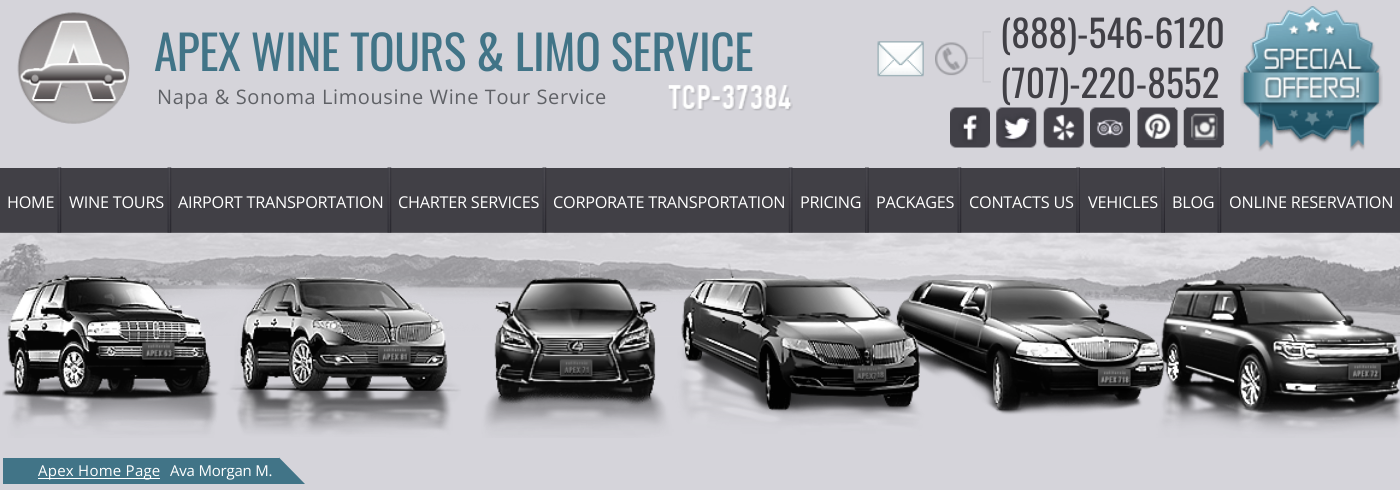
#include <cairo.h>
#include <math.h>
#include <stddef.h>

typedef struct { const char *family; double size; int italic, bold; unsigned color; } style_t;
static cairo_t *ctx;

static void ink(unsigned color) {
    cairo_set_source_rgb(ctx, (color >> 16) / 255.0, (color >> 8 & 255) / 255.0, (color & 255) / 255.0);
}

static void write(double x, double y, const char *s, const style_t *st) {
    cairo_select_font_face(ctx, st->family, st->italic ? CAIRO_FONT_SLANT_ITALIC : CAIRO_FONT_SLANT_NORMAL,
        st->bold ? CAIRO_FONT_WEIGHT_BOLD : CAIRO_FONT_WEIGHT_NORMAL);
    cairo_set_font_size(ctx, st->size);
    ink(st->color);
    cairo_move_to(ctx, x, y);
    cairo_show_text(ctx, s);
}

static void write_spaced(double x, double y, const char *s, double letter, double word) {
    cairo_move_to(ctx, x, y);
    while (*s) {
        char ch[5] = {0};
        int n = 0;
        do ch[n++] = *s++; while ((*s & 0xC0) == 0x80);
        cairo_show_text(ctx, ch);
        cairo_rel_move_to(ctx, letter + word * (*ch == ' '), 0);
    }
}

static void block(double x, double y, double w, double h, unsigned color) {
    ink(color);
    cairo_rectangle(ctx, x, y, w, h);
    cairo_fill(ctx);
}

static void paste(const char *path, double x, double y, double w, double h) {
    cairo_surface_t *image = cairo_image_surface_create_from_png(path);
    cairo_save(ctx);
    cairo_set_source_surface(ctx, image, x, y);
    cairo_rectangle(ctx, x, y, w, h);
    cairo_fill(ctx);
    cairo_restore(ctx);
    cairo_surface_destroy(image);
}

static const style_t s1 = {"Oswald", 37.5, 0, 0, 0x414046};

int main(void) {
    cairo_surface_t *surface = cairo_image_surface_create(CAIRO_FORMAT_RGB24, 1400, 490);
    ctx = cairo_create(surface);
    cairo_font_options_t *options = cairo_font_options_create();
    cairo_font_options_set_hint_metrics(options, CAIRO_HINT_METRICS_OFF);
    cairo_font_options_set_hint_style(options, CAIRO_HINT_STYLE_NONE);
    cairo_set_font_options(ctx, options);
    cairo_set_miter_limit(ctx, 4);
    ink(0x414046);
    cairo_paint(ctx);
    block(0, 0, 1400, 168, 0xd5d4da);
    paste("pic1.png", 17, 12, 113, 112);
    cairo_select_font_face(ctx, "Oswald", CAIRO_FONT_SLANT_NORMAL, CAIRO_FONT_WEIGHT_NORMAL);
    cairo_set_font_size(ctx, 47.5);
    ink(0x417487);
    write_spaced(154, 71, "APEX WINE TOURS & LIMO SERVICE", -0.5, 0);
    cairo_select_font_face(ctx, "Open Sans", CAIRO_FONT_SLANT_NORMAL, CAIRO_FONT_WEIGHT_NORMAL);
    cairo_set_font_size(ctx, 20);
    ink(0x5f6166);
    write_spaced(157, 104, "Napa & Sonoma Limousine Wine Tour Service", 0.6, 0);
    paste("pic2.png", 877, 41, 47, 36);
    paste("pic3.png", 935, 31, 56, 52);
    write(1000, 48, "(888)-546-6120", &s1);
    write(1000, 98, "(707)-220-8552", &s1);
    paste("pic4.png", 950, 107, 40, 41);
    paste("pic5.png", 996, 107, 41, 41);
    paste("pic6.png", 1043, 107, 41, 41);
    paste("pic7.png", 1090, 107, 40, 41);
    paste("pic8.png", 1137, 107, 41, 41);
    paste("pic9.png", 1183, 107, 41, 41);
    paste("pic10.png", 1240, 6, 143, 146);
    paste("pic11.png", 668, 85, 125, 26);
    cairo_select_font_face(ctx, "Open Sans", CAIRO_FONT_SLANT_NORMAL, CAIRO_FONT_WEIGHT_NORMAL);
    cairo_set_font_size(ctx, 16.25);
    ink(0xffffff);
    write_spaced(7, 208, "HOME", -0.25, 0);
    block(0, 233, 1400, 257, 0xd5d4da);
    paste("pic22.png", 0, 232, 1400, 105);
    paste("pic12.png", 57, 167, 5, 66);
    ink(0xffffff);
    write_spaced(69, 208, "WINE TOURS", -0.25, 0);
    paste("pic13.png", 167, 167, 5, 66);
    write_spaced(178, 208, "AIRPORT TRANSPORTATION", -0.25, 0);
    paste("pic14.png", 387, 167, 5, 66);
    write_spaced(398, 208, "CHARTER SERVICES", -0.25, 0);
    paste("pic15.png", 542, 167, 5, 66);
    write_spaced(553, 208, "CORPORATE TRANSPORTATION", -0.25, 0);
    paste("pic16.png", 788, 167, 5, 66);
    write_spaced(800, 208, "PRICING", -0.25, 0);
    paste("pic17.png", 865, 167, 4, 66);
    write_spaced(876, 208, "PACKAGES", -0.25, 0);
    paste("pic18.png", 957, 167, 5, 66);
    write_spaced(969, 208, "CONTACTS US", -0.25, 0);
    paste("pic19.png", 1076, 167, 4, 66);
    write_spaced(1088, 208, "VEHICLES", -0.25, 0);
    paste("pic20.png", 1161, 167, 4, 66);
    write_spaced(1172, 208, "BLOG", -0.25, 0);
    paste("pic21.png", 1217, 167, 5, 66);
    write_spaced(1229, 208, "ONLINE RESERVATION", -0.25, 0);
    paste("pic23.png", 2, 263, 1398, 175);
    block(3, 458, 276, 26, 0x417487);
    block(38, 478, 122, 1, 0xffffff);
    cairo_set_font_size(ctx, 15);
    write_spaced(38, 476, "Apex Home Page", 0.25, 0);
    write_spaced(170, 476, "Ava Morgan M.", -0.2, 0);
    ink(0x417487);
    cairo_new_path(ctx);
    cairo_move_to(ctx, 279, 484);
    cairo_line_to(ctx, 279, 457.5);
    cairo_line_to(ctx, 305, 484);
    cairo_close_path(ctx);
    cairo_fill(ctx);
    cairo_surface_write_to_png(surface, "screenshot.png");
    cairo_font_options_destroy(options);
    cairo_destroy(ctx);
    cairo_surface_destroy(surface);
    return 0;
}
